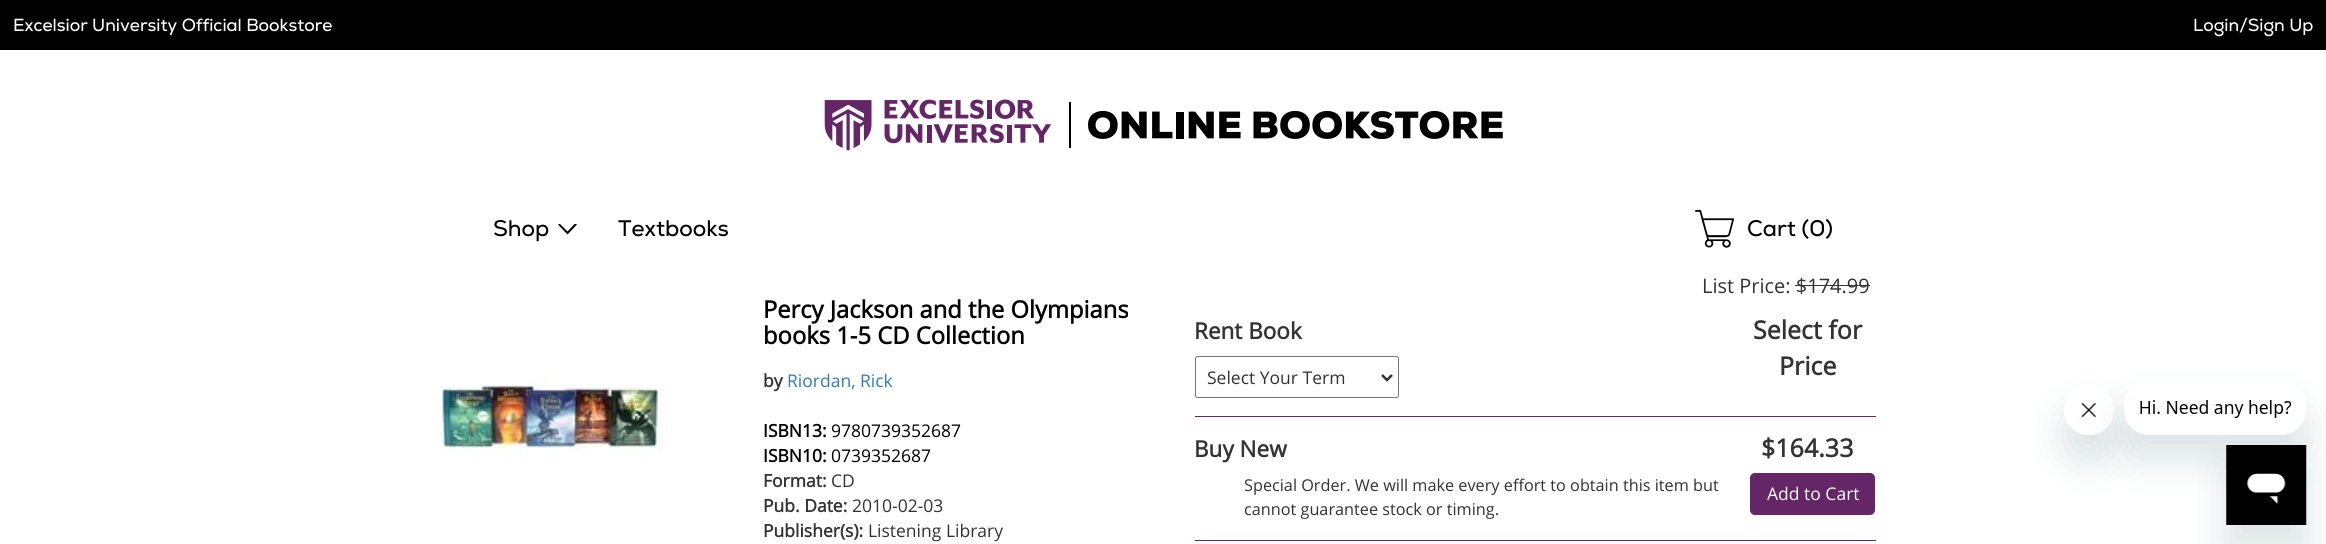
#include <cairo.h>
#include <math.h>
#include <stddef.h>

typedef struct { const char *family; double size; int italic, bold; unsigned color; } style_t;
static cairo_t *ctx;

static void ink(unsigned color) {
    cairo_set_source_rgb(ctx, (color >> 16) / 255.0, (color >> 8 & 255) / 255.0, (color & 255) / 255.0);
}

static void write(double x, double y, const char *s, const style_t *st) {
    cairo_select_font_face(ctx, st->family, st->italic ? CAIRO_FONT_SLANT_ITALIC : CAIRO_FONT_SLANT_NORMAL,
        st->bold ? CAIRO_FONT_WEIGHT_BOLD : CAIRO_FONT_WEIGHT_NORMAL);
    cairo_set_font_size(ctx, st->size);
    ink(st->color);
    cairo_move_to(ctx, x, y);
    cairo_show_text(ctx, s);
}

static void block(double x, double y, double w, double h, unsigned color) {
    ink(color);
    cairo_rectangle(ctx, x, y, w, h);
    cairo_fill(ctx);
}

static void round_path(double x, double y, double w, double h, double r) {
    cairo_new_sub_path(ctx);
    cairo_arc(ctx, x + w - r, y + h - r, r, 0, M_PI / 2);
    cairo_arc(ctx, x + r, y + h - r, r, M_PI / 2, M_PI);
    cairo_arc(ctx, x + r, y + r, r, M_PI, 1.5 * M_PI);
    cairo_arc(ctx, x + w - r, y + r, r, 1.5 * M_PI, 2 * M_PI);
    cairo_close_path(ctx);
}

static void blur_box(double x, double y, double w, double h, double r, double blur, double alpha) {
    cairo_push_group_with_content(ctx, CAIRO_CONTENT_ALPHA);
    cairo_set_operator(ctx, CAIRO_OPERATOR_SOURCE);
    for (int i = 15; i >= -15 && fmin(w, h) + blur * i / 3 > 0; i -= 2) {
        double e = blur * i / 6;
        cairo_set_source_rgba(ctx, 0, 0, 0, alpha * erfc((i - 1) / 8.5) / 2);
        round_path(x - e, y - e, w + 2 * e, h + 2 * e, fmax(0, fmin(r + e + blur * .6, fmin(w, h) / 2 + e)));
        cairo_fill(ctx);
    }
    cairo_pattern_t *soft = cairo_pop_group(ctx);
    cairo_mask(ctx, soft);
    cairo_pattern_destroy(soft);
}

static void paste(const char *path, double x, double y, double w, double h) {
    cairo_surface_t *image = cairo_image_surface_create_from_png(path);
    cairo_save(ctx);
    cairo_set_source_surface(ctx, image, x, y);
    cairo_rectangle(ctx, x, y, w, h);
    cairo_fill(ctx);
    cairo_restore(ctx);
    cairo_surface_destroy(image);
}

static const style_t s1 = {"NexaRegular", 17.5, 0, 0, 0xffffff};
static const style_t s2 = {"NexaRegular", 22.5, 0, 0, 0x000000};
static const style_t s3 = {"Open Sans", 23.75, 0, 1, 0x000000};
static const style_t s4 = {"Open Sans", 17.5, 0, 1, 0x333333};
static const style_t s5 = {"Open Sans", 17.5, 0, 0, 0x337ab7};
static const style_t s6 = {"Open Sans", 17.5, 0, 1, 0x000000};
static const style_t s7 = {"Open Sans", 17.5, 0, 0, 0x000000};
static const style_t s8 = {"Open Sans", 17.5, 0, 0, 0x333333};
static const style_t s9 = {"Open Sans", 20, 0, 0, 0x333333};
static const style_t s10 = {"Open Sans", 22.5, 0, 1, 0x333333};
static const style_t s11 = {"Open Sans", 25, 0, 1, 0x333333};
static const style_t s12 = {"Open Sans", 16.25, 0, 0, 0x333333};
static const style_t s13 = {"Open Sans", 17.5, 0, 0, 0xffffff};

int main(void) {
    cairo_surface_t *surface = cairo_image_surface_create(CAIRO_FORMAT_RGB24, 2326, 544);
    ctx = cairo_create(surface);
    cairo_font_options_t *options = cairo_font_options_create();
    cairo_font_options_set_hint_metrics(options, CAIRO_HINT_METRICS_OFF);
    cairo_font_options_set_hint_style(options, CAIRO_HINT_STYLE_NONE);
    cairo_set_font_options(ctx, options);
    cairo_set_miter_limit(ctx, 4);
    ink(0xffffff);
    cairo_paint(ctx);
    block(0, 0, 2326, 50, 0x000000);
    write(13, 31, "Excelsior University Official Bookstore", &s1);
    write(2193, 31, "Login/Sign Up", &s1);
    paste("pic1.png", 824, 99, 679, 52);
    write(493, 236, "Shop", &s2);
    cairo_new_path(ctx);
    cairo_move_to(ctx, 577, 224.5);
    cairo_line_to(ctx, 576, 224);
    cairo_line_to(ctx, 574.5, 224);
    cairo_line_to(ctx, 567.5, 231.5);
    cairo_line_to(ctx, 560, 224);
    cairo_line_to(ctx, 559, 224);
    cairo_line_to(ctx, 558, 224.5);
    cairo_line_to(ctx, 567.5, 234.5);
    cairo_close_path(ctx);
    cairo_fill(ctx);
    write(618, 236, "Textbooks", &s2);
    paste("pic2.png", 1695, 210, 39, 38);
    write(1747, 236, "Cart (0)", &s2);
    paste("pic3.png", 440, 379, 223, 78);
    write(763, 318, "Percy Jackson and the Olympians", &s3);
    write(763, 344, "books 1-5 CD Collection", &s3);
    write(763, 387, "by", &s4);
    write(787, 387, "Riordan, Rick", &s5);
    write(763, 437, "ISBN13:", &s6);
    write(831, 437, "9780739352687", &s7);
    write(763, 462, "ISBN10:", &s6);
    write(831, 462, "0739352687", &s7);
    write(763, 487, "Format:", &s4);
    write(831, 487, "CD", &s8);
    write(763, 512, "Pub. Date:", &s4);
    write(852, 512, "2010-02-03", &s8);
    write(763, 537, "Publisher(s):", &s4);
    write(868, 537, "Listening Library", &s8);
    write(1702, 293, "List Price: $174.99", &s9);
    block(1795, 285, 75, 1, 0x333333);
    write(1194, 339, "Rent Book", &s10);
    round_path(1195.5, 356.5, 203, 41, 2);
    ink(0x767676);
    cairo_set_line_width(ctx, 1);
    cairo_stroke(ctx);
    cairo_new_path(ctx);
    cairo_move_to(ctx, 1382, 375);
    cairo_line_to(ctx, 1387, 380);
    cairo_line_to(ctx, 1392, 375);
    ink(0x333333);
    cairo_set_line_width(ctx, 2.5);
    cairo_stroke(ctx);
    write(1207, 384, "Select Your Term", &s8);
    write(1753, 339, "Select for", &s11);
    write(1779, 375, "Price", &s11);
    block(1195, 416, 681, 1, 0x642667);
    write(1194, 457, "Buy New", &s10);
    write(1244, 491, "Special Order. We will make every effort to obtain this item but", &s12);
    write(1244, 515, "cannot guarantee stock or timing.", &s12);
    write(1761, 457, "$164.33", &s11);
    ink(0x642667);
    round_path(1750.5, 473.5, 124, 41, 4.5);
    cairo_fill_preserve(ctx);
    cairo_set_line_width(ctx, 1);
    cairo_stroke(ctx);
    write(1767, 500, "Add to Cart", &s13);
    block(1195, 540, 681, 1, 0x642667);
    cairo_save(ctx);
    cairo_set_fill_rule(ctx, CAIRO_FILL_RULE_EVEN_ODD);
    cairo_new_path(ctx);
    cairo_move_to(ctx, 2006, 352);
    cairo_line_to(ctx, 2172, 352);
    cairo_line_to(ctx, 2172, 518);
    cairo_line_to(ctx, 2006, 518);
    cairo_close_path(ctx);
    cairo_move_to(ctx, 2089, 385);
    cairo_curve_to(ctx, 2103, 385, 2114, 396, 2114, 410);
    cairo_curve_to(ctx, 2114, 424, 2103, 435, 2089, 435);
    cairo_curve_to(ctx, 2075, 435, 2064, 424, 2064, 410);
    cairo_curve_to(ctx, 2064, 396, 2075, 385, 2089, 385);
    cairo_close_path(ctx);
    cairo_clip(ctx);
    ink(0x17494d);
    blur_box(2064, 410, 50, 50, 25, 19, 0.15);
    cairo_restore(ctx);
    paste("pic5.png", 2081, 403, 15, 14);
    cairo_save(ctx);
    cairo_set_fill_rule(ctx, CAIRO_FILL_RULE_EVEN_ODD);
    cairo_new_path(ctx);
    cairo_move_to(ctx, 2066, 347);
    cairo_line_to(ctx, 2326, 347);
    cairo_line_to(ctx, 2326, 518);
    cairo_line_to(ctx, 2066, 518);
    cairo_close_path(ctx);
    cairo_move_to(ctx, 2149, 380);
    cairo_line_to(ctx, 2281, 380);
    cairo_curve_to(ctx, 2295, 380, 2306, 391, 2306, 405);
    cairo_line_to(ctx, 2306, 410);
    cairo_curve_to(ctx, 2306, 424, 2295, 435, 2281, 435);
    cairo_line_to(ctx, 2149, 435);
    cairo_curve_to(ctx, 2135, 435, 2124, 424, 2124, 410);
    cairo_line_to(ctx, 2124, 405);
    cairo_curve_to(ctx, 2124, 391, 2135, 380, 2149, 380);
    cairo_close_path(ctx);
    cairo_clip(ctx);
    ink(0x17494d);
    blur_box(2124, 405, 182, 55, 25, 19, 0.15);
    cairo_restore(ctx);
    paste("pic4.png", 2125, 400, 167, 31);
    ink(0x17494d);
    blur_box(2226, 470, 80, 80, 0, 19, 0.15);
    paste("pic6.png", 2226, 445, 81, 80);
    cairo_surface_write_to_png(surface, "screenshot.png");
    cairo_font_options_destroy(options);
    cairo_destroy(ctx);
    cairo_surface_destroy(surface);
    return 0;
}
